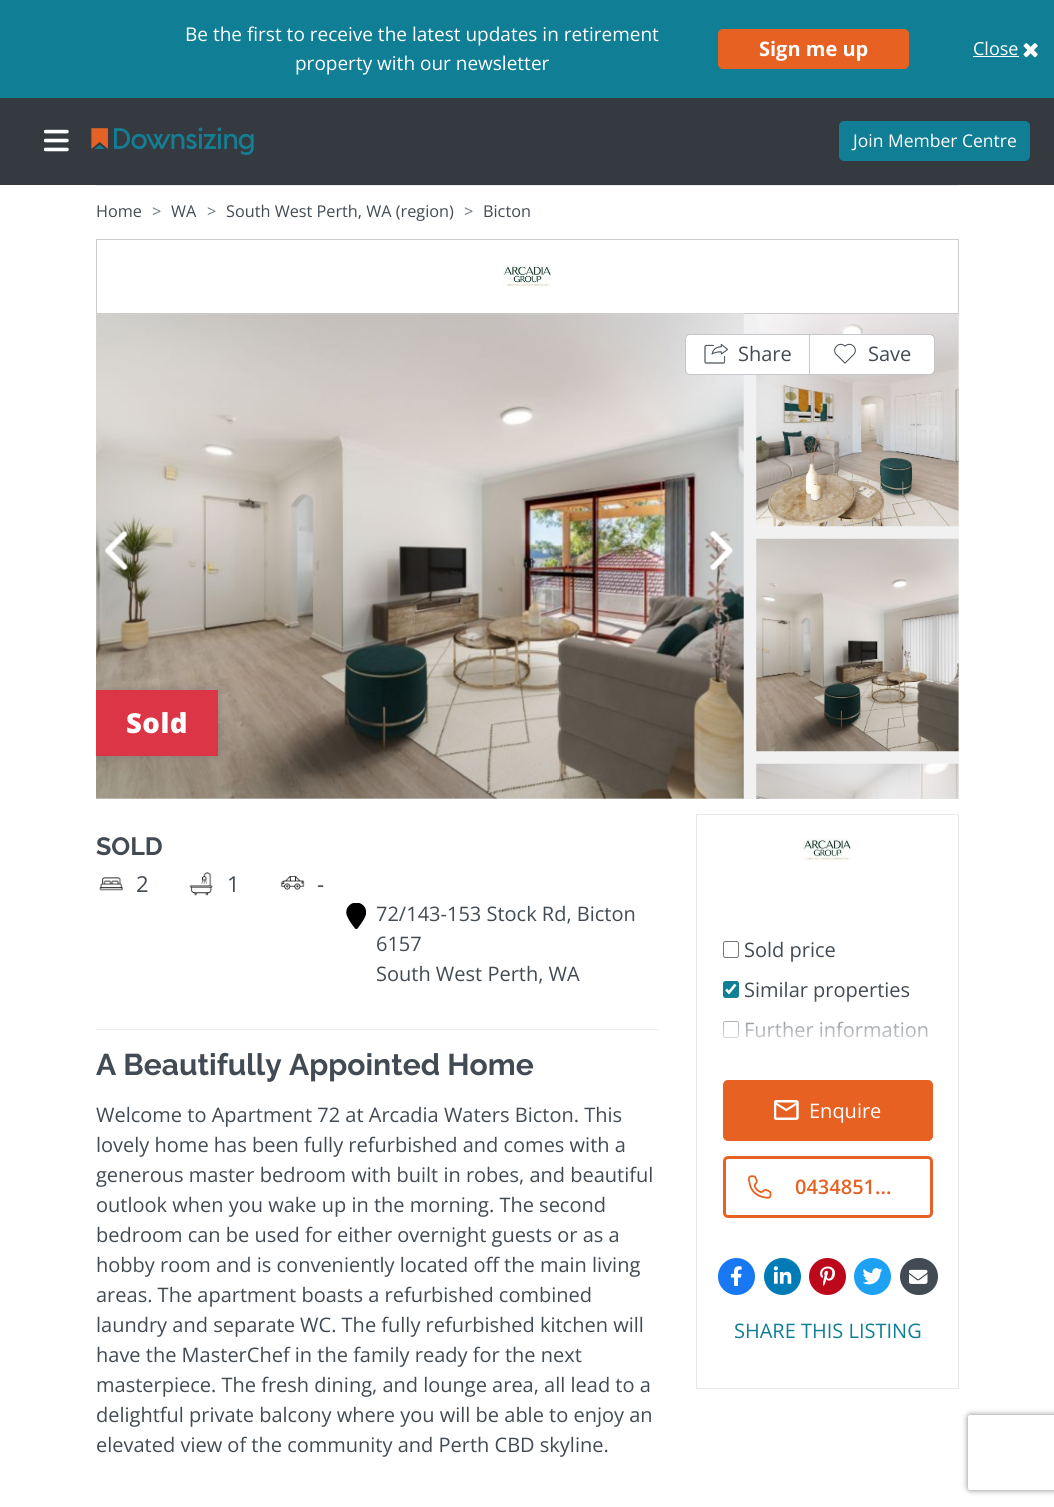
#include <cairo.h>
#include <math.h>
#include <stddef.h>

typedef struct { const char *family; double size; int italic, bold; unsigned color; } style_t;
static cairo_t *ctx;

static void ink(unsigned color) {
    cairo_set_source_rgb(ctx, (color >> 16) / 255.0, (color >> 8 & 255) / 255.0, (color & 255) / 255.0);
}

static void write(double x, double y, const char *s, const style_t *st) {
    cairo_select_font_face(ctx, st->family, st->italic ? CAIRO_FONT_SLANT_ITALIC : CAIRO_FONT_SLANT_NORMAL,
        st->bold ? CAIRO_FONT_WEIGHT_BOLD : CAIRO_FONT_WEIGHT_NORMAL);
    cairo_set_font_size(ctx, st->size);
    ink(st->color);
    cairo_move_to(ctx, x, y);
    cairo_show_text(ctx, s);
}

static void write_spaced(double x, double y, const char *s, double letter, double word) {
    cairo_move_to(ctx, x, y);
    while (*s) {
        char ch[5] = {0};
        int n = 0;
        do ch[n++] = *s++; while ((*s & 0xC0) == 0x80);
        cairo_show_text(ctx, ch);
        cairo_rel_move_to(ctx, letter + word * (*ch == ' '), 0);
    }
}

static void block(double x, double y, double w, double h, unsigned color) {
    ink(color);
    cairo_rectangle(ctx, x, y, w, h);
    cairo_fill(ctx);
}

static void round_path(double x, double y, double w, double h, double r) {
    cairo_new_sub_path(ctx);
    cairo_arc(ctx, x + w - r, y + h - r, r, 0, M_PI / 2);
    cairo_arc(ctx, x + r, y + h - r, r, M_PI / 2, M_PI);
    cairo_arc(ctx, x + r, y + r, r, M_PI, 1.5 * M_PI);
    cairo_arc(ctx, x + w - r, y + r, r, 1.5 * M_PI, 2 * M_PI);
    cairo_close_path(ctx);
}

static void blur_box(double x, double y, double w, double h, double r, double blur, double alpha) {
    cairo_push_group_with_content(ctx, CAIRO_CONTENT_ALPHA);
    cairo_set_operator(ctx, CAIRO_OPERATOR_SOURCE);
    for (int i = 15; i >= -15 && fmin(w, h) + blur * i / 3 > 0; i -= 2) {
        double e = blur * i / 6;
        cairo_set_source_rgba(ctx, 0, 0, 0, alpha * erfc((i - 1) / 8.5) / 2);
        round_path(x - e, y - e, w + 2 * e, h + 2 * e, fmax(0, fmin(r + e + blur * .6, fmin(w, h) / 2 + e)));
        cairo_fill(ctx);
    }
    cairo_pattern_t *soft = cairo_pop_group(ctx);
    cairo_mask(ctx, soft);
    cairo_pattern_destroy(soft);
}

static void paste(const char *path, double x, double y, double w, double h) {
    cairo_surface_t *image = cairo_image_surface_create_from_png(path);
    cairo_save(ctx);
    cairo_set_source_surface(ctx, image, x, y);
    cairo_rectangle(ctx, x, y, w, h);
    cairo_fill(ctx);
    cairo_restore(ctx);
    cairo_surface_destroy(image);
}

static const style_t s1 = {"Open Sans", 19, 0, 0, 0xffffff};
static const style_t s2 = {"Open Sans", 20, 0, 1, 0xffffff};
static const style_t s3 = {"Open Sans", 18, 0, 0, 0xffffff};
static const style_t s4 = {"Open Sans", 17.5, 0, 0, 0xffffff};
static const style_t s5 = {"Open Sans", 16.25, 0, 0, 0x424b54};
static const style_t s6 = {"Open Sans", 16.25, 0, 0, 0x6c757d};
static const style_t s7 = {"Open Sans", 20, 0, 0, 0x424b54};
static const style_t s8 = {"Raleway", 25, 0, 1, 0x424b54};
static const style_t s9 = {"Open Sans", 22, 0, 0, 0x424b54};
static const style_t s10 = {"Raleway", 30, 0, 1, 0x424b54};
static const style_t s11 = {"Open Sans", 20, 0, 0, 0xffffff};
static const style_t s12 = {"Open Sans SemiBold", 20, 0, 0, 0xe76123};
static const style_t s13 = {"Open Sans", 20, 0, 0, 0x107e94};

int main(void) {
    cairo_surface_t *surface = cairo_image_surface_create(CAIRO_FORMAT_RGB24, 1054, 1507);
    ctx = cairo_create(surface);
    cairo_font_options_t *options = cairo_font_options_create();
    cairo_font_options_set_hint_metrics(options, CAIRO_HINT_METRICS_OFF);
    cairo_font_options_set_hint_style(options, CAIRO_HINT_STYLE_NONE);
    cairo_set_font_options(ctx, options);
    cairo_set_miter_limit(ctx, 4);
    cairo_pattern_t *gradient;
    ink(0xffffff);
    cairo_paint(ctx);
    block(0, 0, 1054, 98, 0x107e94);
    write(185, 41, "Be the first to receive the latest updates in retirement", &s1);
    write(295, 70, "property with our newsletter", &s1);
    ink(0xe76123);
    round_path(718.5, 29.5, 190, 39, 4.5);
    cairo_fill_preserve(ctx);
    cairo_set_line_width(ctx, 1);
    cairo_stroke(ctx);
    write(759, 56, "Sign me up", &s2);
    write(973, 55, "Close", &s3);
    block(973, 56, 46, 1, 0xffffff);
    paste("pic1.png", 1023, 43, 15, 15);
    block(0, 98, 1054, 87, 0x343a40);
    paste("pic2.png", 44, 129, 25, 23);
    paste("pic3.png", 91, 127, 163, 28);
    ink(0x107e94);
    round_path(839, 121, 191, 40, 5);
    cairo_fill(ctx);
    write(853, 147, "Join Member Centre", &s4);
    block(96, 185, 863, 1, 0xeeeeee);
    write(96, 217, "Home", &s5);
    write(152, 217, ">", &s6);
    write(171, 217, "WA", &s5);
    write(207, 217, ">", &s6);
    write(226, 217, "South West Perth, WA (region)", &s5);
    write(464, 217, ">", &s6);
    write(483, 217, "Bicton", &s5);
    cairo_rectangle(ctx, 96.5, 239.5, 862, 74);
    ink(0xcccccc);
    cairo_stroke(ctx);
    paste("pic4.png", 502, 265, 49, 22);
    block(744, 314, 215, 485, 0xf1f1f1);
    block(96, 314, 648, 485, 0xeeeeee);
    paste("pic5.png", 96, 313, 648, 486);
    paste("pic6.png", 104, 530, 24, 41);
    paste("pic7.png", 710, 530, 23, 40);
    block(756, 314, 203, 212, 0xeeeeee);
    paste("pic8.png", 756, 314, 203, 213);
    block(756, 539, 203, 212, 0xeeeeee);
    paste("pic9.png", 756, 538, 203, 214);
    block(756, 764, 203, 35, 0xeeeeee);
    paste("pic10.png", 756, 763, 203, 36);
    ink(0xffffff);
    cairo_new_path(ctx);
    cairo_move_to(ctx, 690, 334.5);
    cairo_line_to(ctx, 809.5, 334.5);
    cairo_line_to(ctx, 809.5, 374.5);
    cairo_line_to(ctx, 690, 374.5);
    cairo_curve_to(ctx, 687.5, 374.5, 685.5, 372.5, 685.5, 370);
    cairo_line_to(ctx, 685.5, 339);
    cairo_curve_to(ctx, 685.5, 336.5, 687.5, 334.5, 690, 334.5);
    cairo_close_path(ctx);
    cairo_fill_preserve(ctx);
    ink(0xc6c7cc);
    cairo_stroke(ctx);
    paste("pic11.png", 704, 344, 24, 20);
    write(738, 361, "Share", &s7);
    ink(0xffffff);
    cairo_new_path(ctx);
    cairo_move_to(ctx, 810, 335);
    cairo_line_to(ctx, 930, 335);
    cairo_curve_to(ctx, 932, 335, 934, 337, 934, 339);
    cairo_line_to(ctx, 934, 370);
    cairo_curve_to(ctx, 934, 372, 932, 374, 930, 374);
    cairo_line_to(ctx, 810, 374);
    cairo_close_path(ctx);
    cairo_fill(ctx);
    ink(0xc6c7cc);
    cairo_set_fill_rule(ctx, CAIRO_FILL_RULE_EVEN_ODD);
    cairo_new_path(ctx);
    cairo_move_to(ctx, 810, 334);
    cairo_line_to(ctx, 930, 334);
    cairo_curve_to(ctx, 933, 334, 935, 336, 935, 339);
    cairo_line_to(ctx, 935, 370);
    cairo_curve_to(ctx, 935, 373, 933, 375, 930, 375);
    cairo_line_to(ctx, 810, 375);
    cairo_close_path(ctx);
    cairo_move_to(ctx, 810, 335);
    cairo_line_to(ctx, 930, 335);
    cairo_curve_to(ctx, 932, 335, 934, 337, 934, 339);
    cairo_line_to(ctx, 934, 370);
    cairo_curve_to(ctx, 934, 372, 932, 374, 930, 374);
    cairo_line_to(ctx, 810, 374);
    cairo_close_path(ctx);
    cairo_fill(ctx);
    paste("pic12.png", 834, 343, 22, 21);
    write(868, 361, "Save", &s7);
    cairo_save(ctx);
    cairo_set_fill_rule(ctx, CAIRO_FILL_RULE_WINDING);
    cairo_rectangle(ctx, 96, 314, 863, 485);
    cairo_clip(ctx);
    ink(0x424b54);
    blur_box(96, 690, 122, 66, 0, 4.5, 0.3);
    cairo_restore(ctx);
    block(96, 690, 122, 66, 0xdc3545);
    cairo_select_font_face(ctx, "Open Sans ExtraBold", CAIRO_FONT_SLANT_NORMAL, CAIRO_FONT_WEIGHT_NORMAL);
    cairo_set_font_size(ctx, 27.5);
    ink(0xffffff);
    write_spaced(126, 733, "Sold", 0.5, 0);
    block(96, 1029, 563, 1, 0xeeeeee);
    write(96, 855, "SOLD", &s8);
    paste("pic13.png", 99, 877, 24, 14);
    write(136, 892, "2", &s9);
    paste("pic14.png", 189, 872, 24, 24);
    write(227, 892, "1", &s9);
    paste("pic15.png", 280, 876, 25, 14);
    write(317, 892, "-", &s9);
    paste("pic16.png", 346, 903, 20, 26);
    write(376, 921, "72/143-153 Stock Rd, Bicton", &s7);
    write(376, 951, "6157", &s7);
    write(376, 981, "South West Perth, WA", &s7);
    write(96, 1075, "A Beautifully Appointed Home", &s10);
    write(96, 1122, "Welcome to Apartment 72 at Arcadia Waters Bicton. This", &s7);
    write(96, 1152, "lovely home has been fully refurbished and comes with a", &s7);
    write(96, 1182, "generous master bedroom with built in robes, and beautiful", &s7);
    write(96, 1212, "outlook when you wake up in the morning. The second", &s7);
    write(96, 1242, "bedroom can be used for either overnight guests or as a", &s7);
    write(96, 1272, "hobby room and is conveniently located off the main living", &s7);
    write(96, 1302, "areas. The apartment boasts a refurbished combined", &s7);
    write(96, 1332, "laundry and separate WC. The fully refurbished kitchen will", &s7);
    write(96, 1362, "have the MasterChef in the family ready for the next", &s7);
    write(96, 1392, "masterpiece. The fresh dining, and lounge area, all lead to a", &s7);
    write(96, 1422, "delightful private balcony where you will be able to enjoy an", &s7);
    write(96, 1452, "elevated view of the community and Perth CBD skyline.", &s7);
    cairo_rectangle(ctx, 696.5, 814.5, 262, 574);
    ink(0xe7e9ea);
    cairo_stroke(ctx);
    paste("pic17.png", 802, 838, 49, 23);
    round_path(723.5, 941.5, 15, 16, 2);
    ink(0x767676);
    cairo_stroke(ctx);
    write(744, 957, "Sold price", &s7);
    ink(0x107e94);
    round_path(723, 981, 16, 17, 2.5);
    cairo_fill(ctx);
    cairo_new_path(ctx);
    cairo_move_to(ctx, 726, 989.5);
    cairo_line_to(ctx, 729, 992.5);
    cairo_line_to(ctx, 735.5, 984.5);
    ink(0xffffff);
    cairo_set_line_width(ctx, 2.6);
    cairo_stroke(ctx);
    write(744, 997, "Similar properties", &s7);
    round_path(723.5, 1021.5, 15, 16, 2);
    ink(0x767676);
    cairo_set_line_width(ctx, 1);
    cairo_stroke(ctx);
    write(744, 1037, "Further information", &s7);
    gradient = cairo_pattern_create_linear(828, 1055, 828, 995);
    cairo_pattern_add_color_stop_rgba(gradient, 0, 1, 1, 1, 1);
    cairo_pattern_add_color_stop_rgba(gradient, 1, 1, 1, 1, 0);
    cairo_set_source(ctx, gradient);
    cairo_pattern_destroy(gradient);
    cairo_rectangle(ctx, 723, 996, 205, 42);
    cairo_fill(ctx);
    ink(0xe76123);
    round_path(723.5, 1080.5, 209, 60, 4.5);
    cairo_fill_preserve(ctx);
    cairo_stroke(ctx);
    paste("pic18.png", 774, 1100, 25, 20);
    write(809, 1118, "Enquire", &s11);
    round_path(724.5, 1157.5, 207, 59, 3.5);
    ink(0xe76123);
    cairo_set_line_width(ctx, 3);
    cairo_stroke(ctx);
    paste("pic19.png", 748, 1175, 24, 24);
    write(795, 1194, "0434851...", &s12);
    ink(0x1877f2);
    cairo_new_path(ctx);
    cairo_arc(ctx, 736.5, 1276.5, 18.5, 0, 2 * M_PI);
    cairo_fill(ctx);
    paste("pic20.png", 730, 1266, 12, 20);
    ink(0x007bb5);
    cairo_arc(ctx, 782.5, 1276.5, 18.5, 0, 2 * M_PI);
    cairo_fill(ctx);
    paste("pic21.png", 773, 1266, 19, 18);
    ink(0xbd081c);
    cairo_arc(ctx, 827.5, 1276.5, 18.5, 0, 2 * M_PI);
    cairo_fill(ctx);
    paste("pic22.png", 820, 1266, 15, 20);
    ink(0x1da1f2);
    cairo_arc(ctx, 872.5, 1276.5, 18.5, 0, 2 * M_PI);
    cairo_fill(ctx);
    paste("pic23.png", 863, 1268, 20, 17);
    ink(0x424b54);
    round_path(900, 1258, 38, 37, 18.5);
    cairo_fill(ctx);
    paste("pic24.png", 909, 1269, 19, 15);
    write(734, 1338, "SHARE THIS LISTING", &s13);
    cairo_save(ctx);
    cairo_new_path(ctx);
    cairo_move_to(ctx, 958, 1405);
    cairo_line_to(ctx, 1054, 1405);
    cairo_line_to(ctx, 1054, 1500);
    cairo_line_to(ctx, 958, 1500);
    cairo_close_path(ctx);
    cairo_move_to(ctx, 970.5, 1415);
    cairo_line_to(ctx, 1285.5, 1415);
    cairo_curve_to(ctx, 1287, 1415, 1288, 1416, 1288, 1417.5);
    cairo_line_to(ctx, 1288, 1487.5);
    cairo_curve_to(ctx, 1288, 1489, 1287, 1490, 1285.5, 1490);
    cairo_line_to(ctx, 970.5, 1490);
    cairo_curve_to(ctx, 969, 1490, 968, 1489, 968, 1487.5);
    cairo_line_to(ctx, 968, 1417.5);
    cairo_curve_to(ctx, 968, 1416, 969, 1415, 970.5, 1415);
    cairo_close_path(ctx);
    cairo_clip(ctx);
    ink(0x808080);
    blur_box(968, 1415, 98, 75, 2.5, 3, 1);
    cairo_restore(ctx);
    cairo_surface_write_to_png(surface, "screenshot.png");
    cairo_font_options_destroy(options);
    cairo_destroy(ctx);
    cairo_surface_destroy(surface);
    return 0;
}
